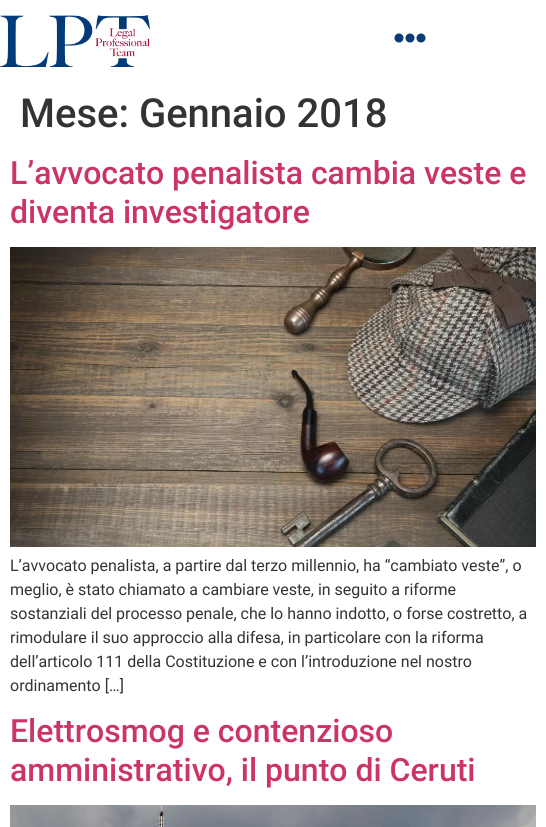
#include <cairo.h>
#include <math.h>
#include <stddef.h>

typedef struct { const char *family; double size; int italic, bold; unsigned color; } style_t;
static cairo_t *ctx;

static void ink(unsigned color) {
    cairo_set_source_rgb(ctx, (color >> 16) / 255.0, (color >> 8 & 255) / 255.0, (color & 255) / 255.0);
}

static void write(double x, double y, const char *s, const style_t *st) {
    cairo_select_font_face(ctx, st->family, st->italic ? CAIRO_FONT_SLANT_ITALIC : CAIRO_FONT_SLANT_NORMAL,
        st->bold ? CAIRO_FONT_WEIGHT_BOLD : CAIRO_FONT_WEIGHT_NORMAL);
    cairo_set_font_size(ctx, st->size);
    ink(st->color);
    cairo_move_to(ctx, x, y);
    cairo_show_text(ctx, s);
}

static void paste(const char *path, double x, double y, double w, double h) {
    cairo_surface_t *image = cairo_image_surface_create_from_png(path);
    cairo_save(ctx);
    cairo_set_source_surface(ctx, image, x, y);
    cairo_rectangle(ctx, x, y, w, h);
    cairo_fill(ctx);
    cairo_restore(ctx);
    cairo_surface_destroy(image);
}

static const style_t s1 = {"Roboto Medium", 40, 0, 0, 0x333333};
static const style_t s2 = {"Roboto Medium", 32, 0, 0, 0xcc3366};
static const style_t s3 = {"Roboto", 16, 0, 0, 0x333333};

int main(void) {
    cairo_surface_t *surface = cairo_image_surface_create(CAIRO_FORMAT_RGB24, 546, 827);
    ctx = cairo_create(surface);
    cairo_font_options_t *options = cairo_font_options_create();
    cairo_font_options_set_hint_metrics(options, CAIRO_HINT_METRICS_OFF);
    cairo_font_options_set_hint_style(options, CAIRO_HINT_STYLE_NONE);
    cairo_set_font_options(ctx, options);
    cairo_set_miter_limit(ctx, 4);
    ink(0xffffff);
    cairo_paint(ctx);
    paste("pic1.png", 0, 15, 150, 52);
    paste("pic2.png", 394, 33, 32, 10);
    write(20, 127, "Mese: Gennaio 2018", &s1);
    write(10, 184, "L’avvocato penalista cambia veste e", &s2);
    write(10, 223, "diventa investigatore", &s2);
    paste("pic3.png", 10, 247, 526, 300);
    write(10, 571, "L’avvocato penalista, a partire dal terzo millennio, ha “cambiato veste”, o", &s3);
    write(10, 595, "meglio, è stato chiamato a cambiare veste, in seguito a riforme", &s3);
    write(10, 619, "sostanziali del processo penale, che lo hanno indotto, o forse costretto, a", &s3);
    write(10, 643, "rimodulare il suo approccio alla difesa, in particolare con la riforma", &s3);
    write(10, 667, "dell’articolo 111 della Costituzione e con l’introduzione nel nostro", &s3);
    write(10, 691, "ordinamento […]", &s3);
    write(10, 742, "Elettrosmog e contenzioso", &s2);
    write(10, 781, "amministrativo, il punto di Ceruti", &s2);
    paste("pic4.png", 10, 805, 526, 22);
    cairo_surface_write_to_png(surface, "screenshot.png");
    cairo_font_options_destroy(options);
    cairo_destroy(ctx);
    cairo_surface_destroy(surface);
    return 0;
}
